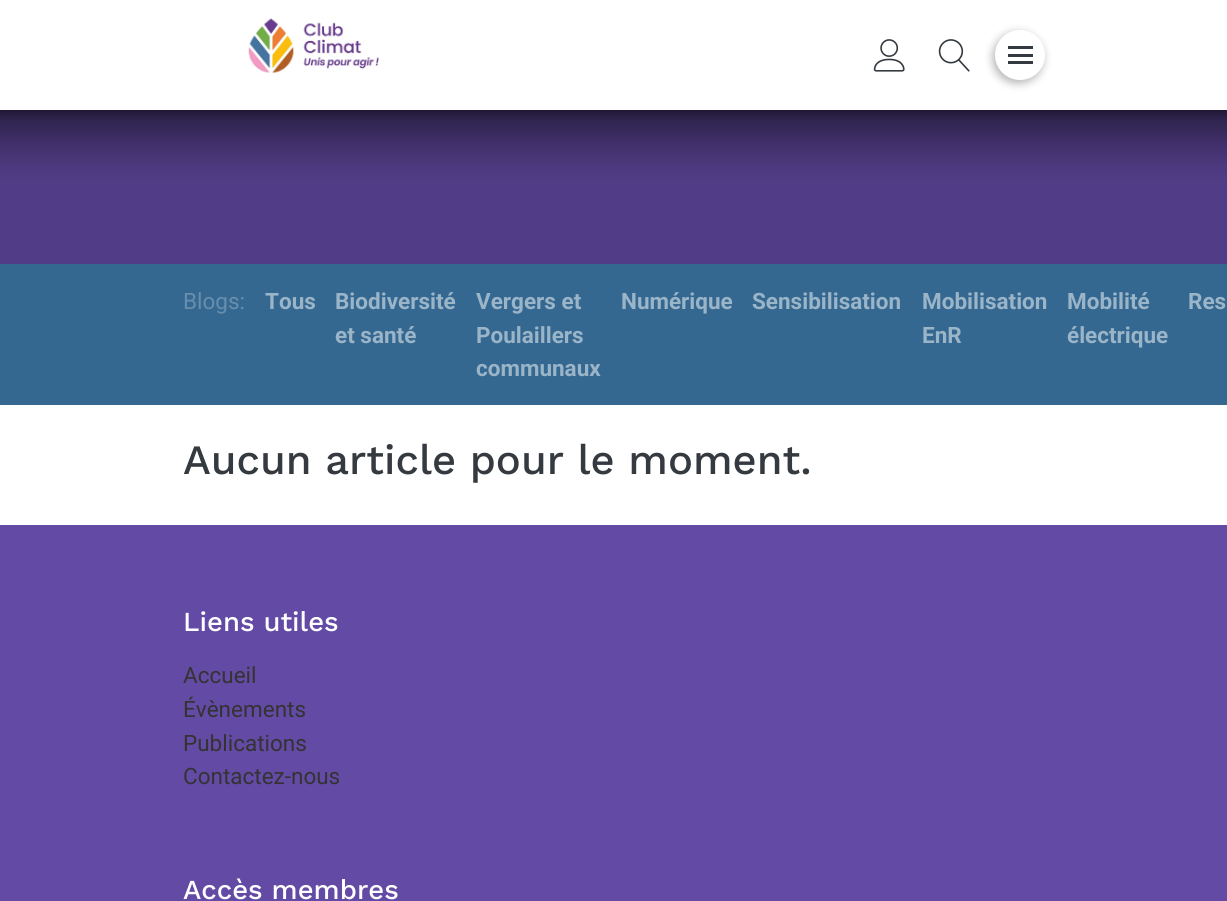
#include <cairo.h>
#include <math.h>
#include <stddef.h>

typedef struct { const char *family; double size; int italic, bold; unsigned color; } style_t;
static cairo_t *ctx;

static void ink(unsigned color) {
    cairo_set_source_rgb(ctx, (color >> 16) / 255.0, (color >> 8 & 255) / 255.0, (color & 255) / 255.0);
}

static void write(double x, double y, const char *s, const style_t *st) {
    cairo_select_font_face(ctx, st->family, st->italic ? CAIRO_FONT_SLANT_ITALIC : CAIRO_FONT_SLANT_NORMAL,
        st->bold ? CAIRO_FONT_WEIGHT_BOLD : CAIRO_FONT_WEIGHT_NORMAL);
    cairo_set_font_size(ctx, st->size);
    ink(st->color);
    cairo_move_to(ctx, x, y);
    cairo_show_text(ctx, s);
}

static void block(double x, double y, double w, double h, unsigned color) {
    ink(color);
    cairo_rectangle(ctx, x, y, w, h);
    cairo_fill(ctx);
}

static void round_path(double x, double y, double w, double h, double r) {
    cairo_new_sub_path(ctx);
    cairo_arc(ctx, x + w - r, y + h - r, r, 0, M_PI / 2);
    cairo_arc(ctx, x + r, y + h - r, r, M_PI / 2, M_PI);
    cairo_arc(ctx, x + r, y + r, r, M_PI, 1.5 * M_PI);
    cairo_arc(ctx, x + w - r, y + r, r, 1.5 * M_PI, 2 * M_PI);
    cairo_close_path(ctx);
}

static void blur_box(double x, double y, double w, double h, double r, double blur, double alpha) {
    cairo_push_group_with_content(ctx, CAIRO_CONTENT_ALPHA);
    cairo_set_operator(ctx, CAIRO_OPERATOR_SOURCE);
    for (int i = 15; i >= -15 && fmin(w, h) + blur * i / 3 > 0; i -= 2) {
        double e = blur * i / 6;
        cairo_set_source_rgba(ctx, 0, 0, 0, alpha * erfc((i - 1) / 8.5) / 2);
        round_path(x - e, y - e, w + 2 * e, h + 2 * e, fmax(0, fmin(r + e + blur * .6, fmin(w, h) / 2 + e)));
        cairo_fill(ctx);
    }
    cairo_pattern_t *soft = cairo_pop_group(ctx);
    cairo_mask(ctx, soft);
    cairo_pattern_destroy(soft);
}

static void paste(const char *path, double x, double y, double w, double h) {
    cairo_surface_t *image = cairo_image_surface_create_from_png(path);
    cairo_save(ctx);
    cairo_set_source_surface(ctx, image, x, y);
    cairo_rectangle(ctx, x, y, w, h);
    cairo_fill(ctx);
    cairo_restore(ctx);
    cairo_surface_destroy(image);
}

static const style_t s1 = {"Roboto", 22.5, 0, 0, 0x688ead};
static const style_t s2 = {"Roboto", 22.5, 0, 1, 0x9ab4c8};
static const style_t s3 = {"Work Sans Medium", 41.75, 0, 0, 0x343a40};
static const style_t s4 = {"Work Sans Medium", 27.5, 0, 0, 0xffffff};
static const style_t s5 = {"Roboto", 22.5, 0, 0, 0x333333};

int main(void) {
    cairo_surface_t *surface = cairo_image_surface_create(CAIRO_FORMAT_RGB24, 1227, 901);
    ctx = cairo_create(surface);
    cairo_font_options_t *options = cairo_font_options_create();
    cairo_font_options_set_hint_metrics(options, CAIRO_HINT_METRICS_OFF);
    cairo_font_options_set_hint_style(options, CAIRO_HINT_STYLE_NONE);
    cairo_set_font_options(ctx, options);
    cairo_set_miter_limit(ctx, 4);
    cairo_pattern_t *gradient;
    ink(0xffffff);
    cairo_paint(ctx);
    gradient = cairo_pattern_create_linear(614, 110, 614, 188);
    cairo_pattern_add_color_stop_rgba(gradient, 0, 0.161, 0.118, 0.267, 1);
    cairo_pattern_add_color_stop_rgba(gradient, 0.19, 0.2, 0.153, 0.333, 1);
    cairo_pattern_add_color_stop_rgba(gradient, 0.34, 0.231, 0.173, 0.384, 1);
    cairo_pattern_add_color_stop_rgba(gradient, 0.47, 0.259, 0.192, 0.427, 1);
    cairo_pattern_add_color_stop_rgba(gradient, 0.56, 0.275, 0.204, 0.455, 1);
    cairo_pattern_add_color_stop_rgba(gradient, 0.65, 0.286, 0.216, 0.478, 1);
    cairo_pattern_add_color_stop_rgba(gradient, 0.73, 0.298, 0.224, 0.498, 1);
    cairo_pattern_add_color_stop_rgba(gradient, 0.8, 0.306, 0.227, 0.51, 1);
    cairo_pattern_add_color_stop_rgba(gradient, 0.86, 0.314, 0.235, 0.522, 1);
    cairo_pattern_add_color_stop_rgba(gradient, 0.91, 0.314, 0.235, 0.525, 1);
    cairo_pattern_add_color_stop_rgba(gradient, 0.95, 0.318, 0.239, 0.525, 1);
    cairo_pattern_add_color_stop_rgba(gradient, 0.98, 0.318, 0.239, 0.529, 1);
    cairo_pattern_add_color_stop_rgba(gradient, 1, 0.318, 0.239, 0.529, 1);
    cairo_set_source(ctx, gradient);
    cairo_pattern_destroy(gradient);
    cairo_rectangle(ctx, 0, 110, 1227, 78);
    cairo_fill(ctx);
    cairo_save(ctx);
    cairo_rectangle(ctx, 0, 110, 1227, 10);
    cairo_clip(ctx);
    ink(0x000000);
    blur_box(-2, 3, 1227, 110, 0, 4.5, 0.3);
    cairo_restore(ctx);
    paste("pic1.png", 248, 18, 131, 55);
    paste("pic2.png", 873, 39, 32, 33);
    paste("pic3.png", 938, 39, 32, 33);
    ink(0x000000);
    blur_box(993, 33, 50, 50, 25, 4.5, 0.3);
    ink(0xffffff);
    cairo_arc(ctx, 1020, 55, 25, 0, 2 * M_PI);
    cairo_fill(ctx);
    block(1008, 46, 25, 3, 0x343a40);
    block(1008, 54, 25, 3, 0x343a40);
    block(1008, 61, 25, 3, 0x343a40);
    block(0, 188, 1227, 76, 0x513d87);
    block(0, 264, 1227, 141, 0x356891);
    write(183, 309, "Blogs:", &s1);
    write(265, 309, "Tous", &s2);
    write(335, 309, "Biodiversité", &s2);
    write(335, 343, "et santé", &s2);
    write(476, 309, "Vergers et", &s2);
    write(476, 343, "Poulaillers", &s2);
    write(476, 376, "communaux", &s2);
    write(621, 309, "Numérique", &s2);
    write(752, 309, "Sensibilisation", &s2);
    write(922, 309, "Mobilisation", &s2);
    write(922, 343, "EnR", &s2);
    write(1067, 309, "Mobilité", &s2);
    write(1067, 343, "électrique", &s2);
    write(1188, 309, "Res", &s2);
    write(183, 474, "Aucun article pour le moment.", &s3);
    block(0, 525, 1227, 376, 0x634aa5);
    write(183, 631, "Liens utiles", &s4);
    write(183, 683, "Accueil", &s5);
    write(183, 717, "Évènements", &s5);
    write(183, 751, "Publications", &s5);
    write(183, 784, "Contactez-nous", &s5);
    write(183, 899, "Accès membres", &s4);
    cairo_surface_write_to_png(surface, "screenshot.png");
    cairo_font_options_destroy(options);
    cairo_destroy(ctx);
    cairo_surface_destroy(surface);
    return 0;
}
